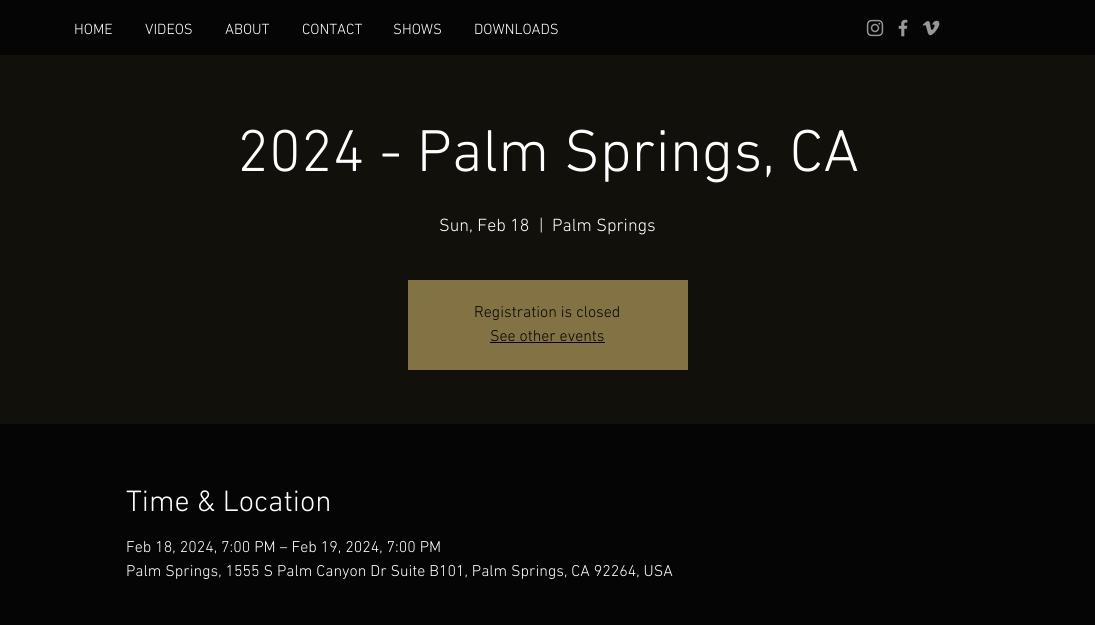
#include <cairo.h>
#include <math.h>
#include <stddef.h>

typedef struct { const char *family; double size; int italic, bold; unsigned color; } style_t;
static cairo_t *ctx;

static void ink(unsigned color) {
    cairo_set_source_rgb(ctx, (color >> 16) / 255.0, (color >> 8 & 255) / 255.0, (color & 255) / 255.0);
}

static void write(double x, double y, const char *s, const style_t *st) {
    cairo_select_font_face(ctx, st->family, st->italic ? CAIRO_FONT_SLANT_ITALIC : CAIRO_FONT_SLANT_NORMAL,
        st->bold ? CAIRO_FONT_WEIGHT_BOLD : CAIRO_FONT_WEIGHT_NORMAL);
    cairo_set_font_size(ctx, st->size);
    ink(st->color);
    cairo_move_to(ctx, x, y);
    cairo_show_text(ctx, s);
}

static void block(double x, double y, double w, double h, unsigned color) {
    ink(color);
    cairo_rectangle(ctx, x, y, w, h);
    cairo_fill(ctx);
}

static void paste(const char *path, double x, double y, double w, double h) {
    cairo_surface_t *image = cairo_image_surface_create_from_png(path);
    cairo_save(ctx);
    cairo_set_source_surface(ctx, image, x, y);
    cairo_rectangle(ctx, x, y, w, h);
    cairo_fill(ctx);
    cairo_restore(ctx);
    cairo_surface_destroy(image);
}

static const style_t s1 = {"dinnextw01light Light", 15, 0, 0, 0xffffff};
static const style_t s2 = {"dinnextw01light Light", 60, 0, 0, 0xffffff};
static const style_t s3 = {"dinnextw01light Light", 18, 0, 0, 0xffffff};
static const style_t s4 = {"dinnextw01light Light", 16, 0, 0, 0x050505};
static const style_t s5 = {"dinnextw01light Light", 30, 0, 0, 0xffffff};
static const style_t s6 = {"dinnextw01light Light", 16, 0, 0, 0xffffff};

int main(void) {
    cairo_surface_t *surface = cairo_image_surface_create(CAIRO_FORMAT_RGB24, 1095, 625);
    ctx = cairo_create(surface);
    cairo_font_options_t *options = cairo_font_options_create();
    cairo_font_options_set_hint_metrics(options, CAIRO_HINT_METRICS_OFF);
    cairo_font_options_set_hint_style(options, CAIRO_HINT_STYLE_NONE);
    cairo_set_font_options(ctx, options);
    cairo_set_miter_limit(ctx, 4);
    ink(0x050505);
    cairo_paint(ctx);
    write(74, 34, "HOME", &s1);
    write(145, 34, "VIDEOS", &s1);
    write(225, 34, "ABOUT", &s1);
    write(302, 34, "CONTACT", &s1);
    write(393, 34, "SHOWS", &s1);
    write(474, 34, "DOWNLOADS", &s1);
    paste("pic1.png", 866, 19, 18, 18);
    paste("pic2.png", 898, 19, 10, 18);
    paste("pic3.png", 922, 20, 18, 16);
    block(0, 55, 1095, 369, 0x12100b);
    write(237, 171, "2024 - Palm Springs, CA", &s2);
    write(439, 231, "Sun, Feb 18", &s3);
    write(539, 231, "|", &s3);
    write(552, 231, "Palm Springs", &s3);
    block(408, 280, 280, 90, 0x837244);
    write(474, 317, "Registration is closed", &s4);
    write(490, 341, "See other events", &s4);
    block(490, 342, 115, 1, 0x050505);
    write(126, 511, "Time & Location", &s5);
    write(126, 552, "Feb 18, 2024, 7:00 PM – Feb 19, 2024, 7:00 PM", &s6);
    write(126, 576, "Palm Springs, 1555 S Palm Canyon Dr Suite B101, Palm Springs, CA 92264, USA", &s6);
    cairo_surface_write_to_png(surface, "screenshot.png");
    cairo_font_options_destroy(options);
    cairo_destroy(ctx);
    cairo_surface_destroy(surface);
    return 0;
}
